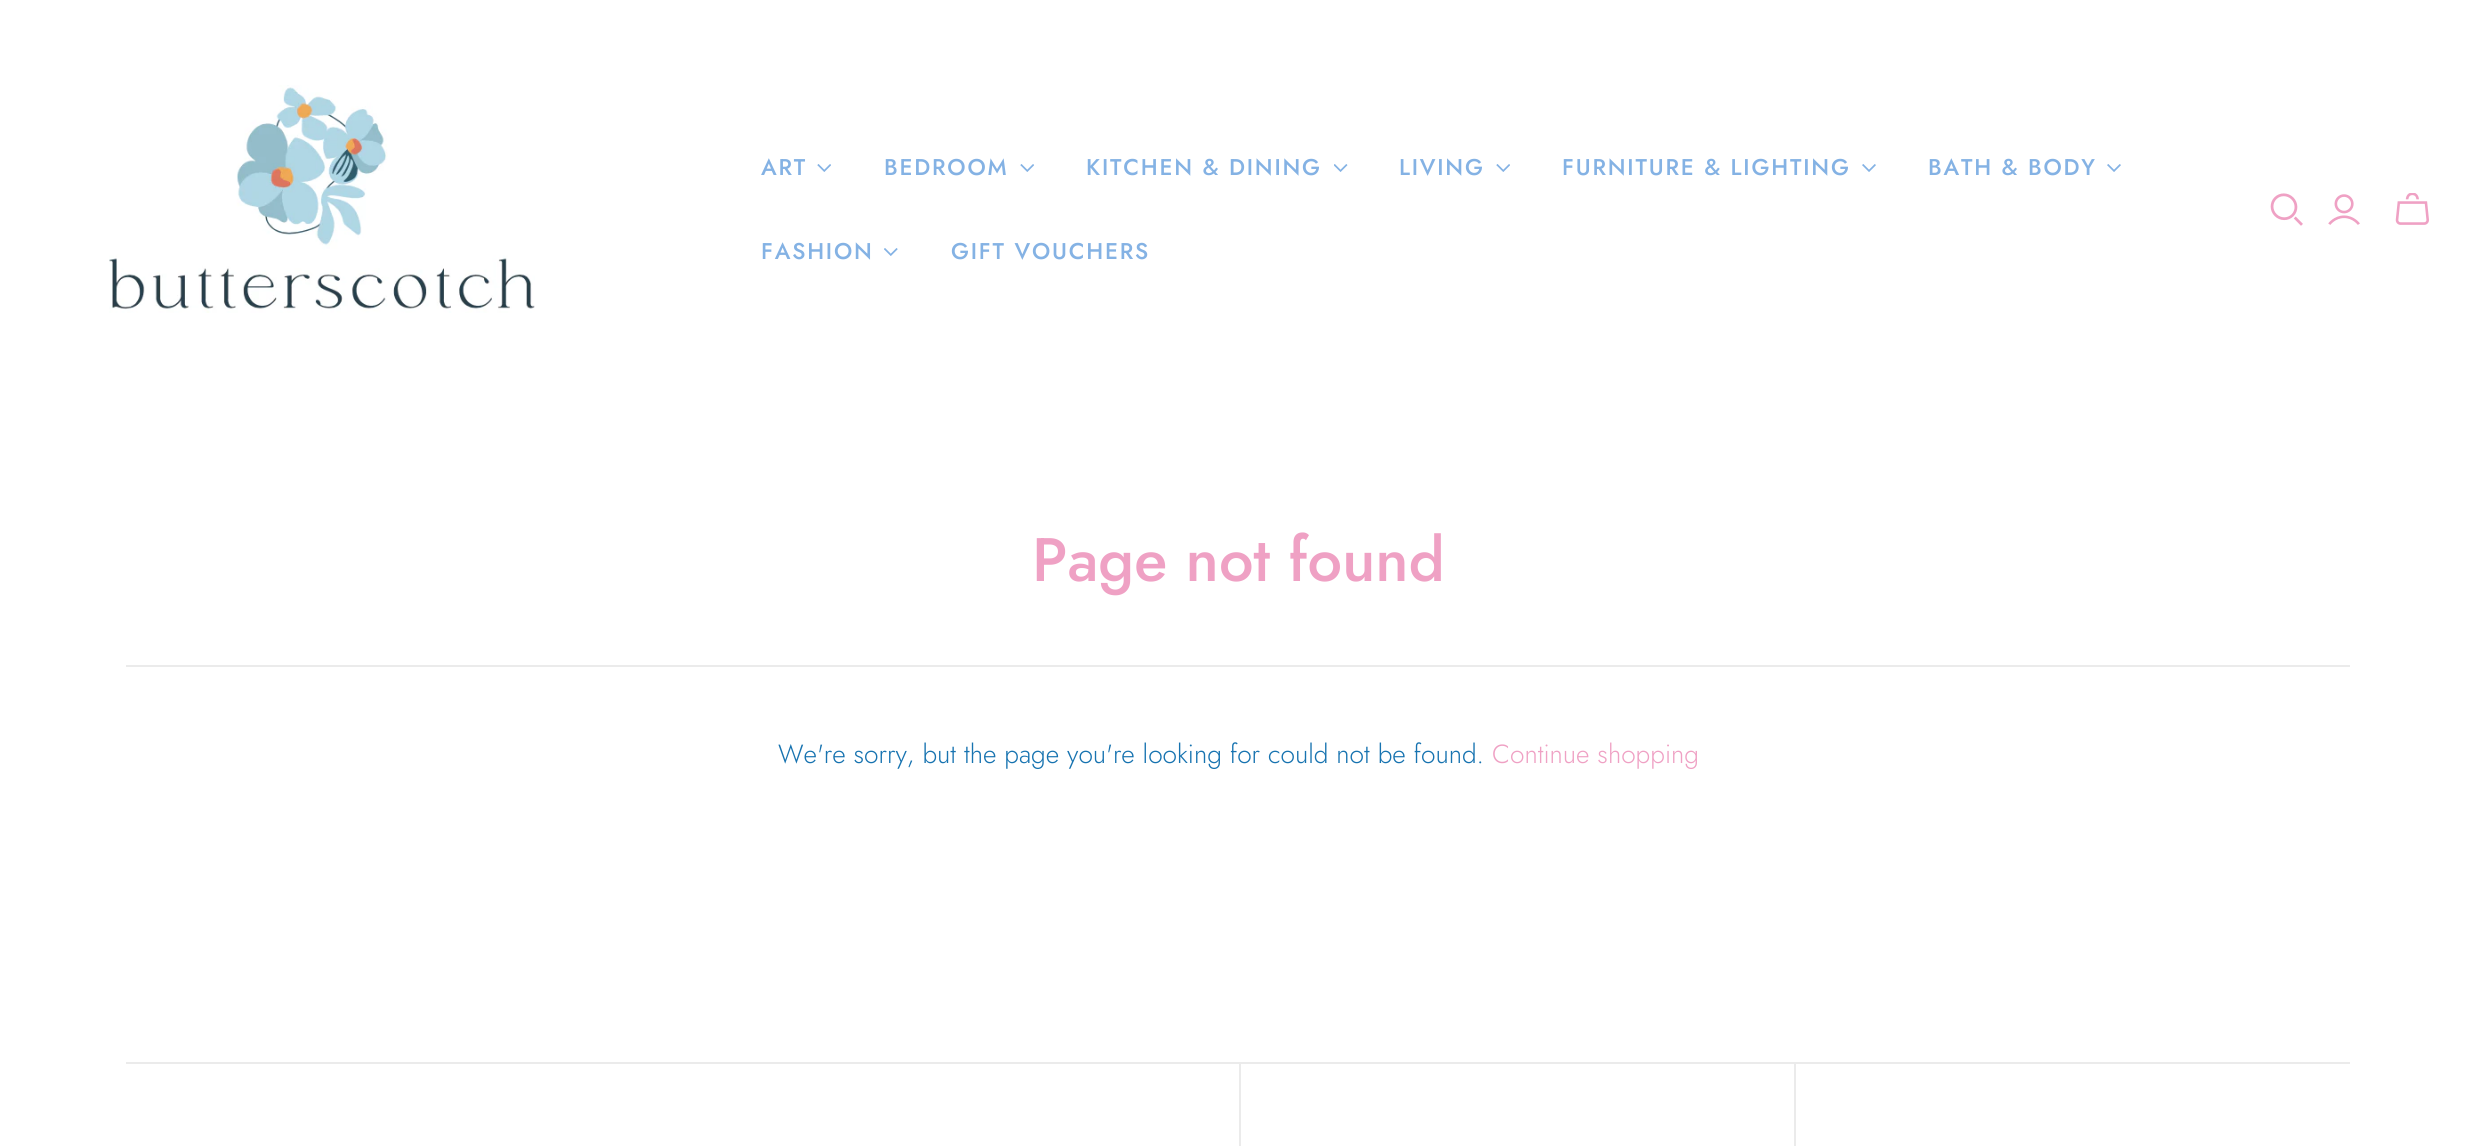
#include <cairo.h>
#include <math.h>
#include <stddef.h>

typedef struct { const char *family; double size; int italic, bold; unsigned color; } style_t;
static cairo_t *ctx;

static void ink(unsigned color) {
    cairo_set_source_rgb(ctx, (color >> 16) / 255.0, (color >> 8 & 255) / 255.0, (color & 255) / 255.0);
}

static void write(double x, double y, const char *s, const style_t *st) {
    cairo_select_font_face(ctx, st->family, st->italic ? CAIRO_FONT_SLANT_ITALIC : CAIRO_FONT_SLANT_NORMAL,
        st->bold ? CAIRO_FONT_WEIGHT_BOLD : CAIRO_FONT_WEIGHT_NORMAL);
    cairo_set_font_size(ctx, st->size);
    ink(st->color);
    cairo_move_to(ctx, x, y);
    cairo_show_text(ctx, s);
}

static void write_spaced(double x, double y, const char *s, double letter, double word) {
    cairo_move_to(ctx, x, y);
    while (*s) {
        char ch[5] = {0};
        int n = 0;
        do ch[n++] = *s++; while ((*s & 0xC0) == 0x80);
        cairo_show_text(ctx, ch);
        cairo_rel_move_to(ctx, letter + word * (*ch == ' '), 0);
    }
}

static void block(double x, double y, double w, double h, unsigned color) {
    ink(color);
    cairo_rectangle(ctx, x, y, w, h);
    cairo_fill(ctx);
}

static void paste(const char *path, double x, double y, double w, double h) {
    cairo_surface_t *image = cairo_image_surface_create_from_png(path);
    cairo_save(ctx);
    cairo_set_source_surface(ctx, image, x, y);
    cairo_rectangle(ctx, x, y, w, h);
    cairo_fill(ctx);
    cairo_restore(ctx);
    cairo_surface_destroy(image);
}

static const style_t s1 = {"Jost Medium", 61.25, 0, 0, 0xefa1c4};
static const style_t s2 = {"Jost Light", 26.25, 0, 0, 0x1773b0};
static const style_t s3 = {"Jost Light", 26.25, 0, 0, 0xefa1c4};

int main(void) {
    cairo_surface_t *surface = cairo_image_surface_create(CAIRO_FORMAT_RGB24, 2476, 1146);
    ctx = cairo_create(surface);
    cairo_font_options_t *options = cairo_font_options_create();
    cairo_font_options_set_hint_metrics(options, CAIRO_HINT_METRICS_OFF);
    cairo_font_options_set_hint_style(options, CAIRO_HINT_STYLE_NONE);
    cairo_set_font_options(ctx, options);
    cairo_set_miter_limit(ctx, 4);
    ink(0xffffff);
    cairo_paint(ctx);
    paste("pic1.png", 109, 85, 426, 228);
    cairo_select_font_face(ctx, "Jost Medium", CAIRO_FONT_SLANT_NORMAL, CAIRO_FONT_WEIGHT_NORMAL);
    cairo_set_font_size(ctx, 22.75);
    ink(0x84b2e4);
    write_spaced(761, 175, "ART", 1.8, 0);
    paste("pic2.png", 817, 164, 14, 8);
    write_spaced(884, 175, "BEDROOM", 1.8, 0);
    paste("pic2.png", 1020, 164, 14, 8);
    write_spaced(1086, 175, "KITCHEN & DINING", 1.8, 0);
    paste("pic3.png", 1334, 164, 14, 8);
    write_spaced(1399, 175, "LIVING", 1.8, 0);
    paste("pic2.png", 1496, 164, 14, 8);
    write_spaced(1562, 175, "FURNITURE & LIGHTING", 1.8, 0);
    paste("pic4.png", 1862, 164, 14, 8);
    write_spaced(1928, 175, "BATH & BODY", 1.8, 0);
    paste("pic4.png", 2107, 164, 14, 8);
    write_spaced(761, 259, "FASHION", 1.8, 0);
    paste("pic5.png", 884, 248, 14, 8);
    write_spaced(951, 259, "GIFT VOUCHERS", 1.8, 0);
    paste("pic6.png", 2270, 193, 33, 33);
    paste("pic7.png", 2328, 194, 32, 31);
    paste("pic8.png", 2395, 193, 34, 32);
    block(126, 665, 2224, 2, 0xebebeb);
    write(1032, 581, "Page not found", &s1);
    write(778, 763, "We're sorry, but the page you're looking for could not be found.", &s2);
    write(1492, 763, "Continue shopping", &s3);
    block(126, 1062, 2224, 2, 0xebebeb);
    block(1239, 1064, 2, 82, 0xebebeb);
    block(1794, 1064, 2, 82, 0xebebeb);
    cairo_surface_write_to_png(surface, "screenshot.png");
    cairo_font_options_destroy(options);
    cairo_destroy(ctx);
    cairo_surface_destroy(surface);
    return 0;
}
